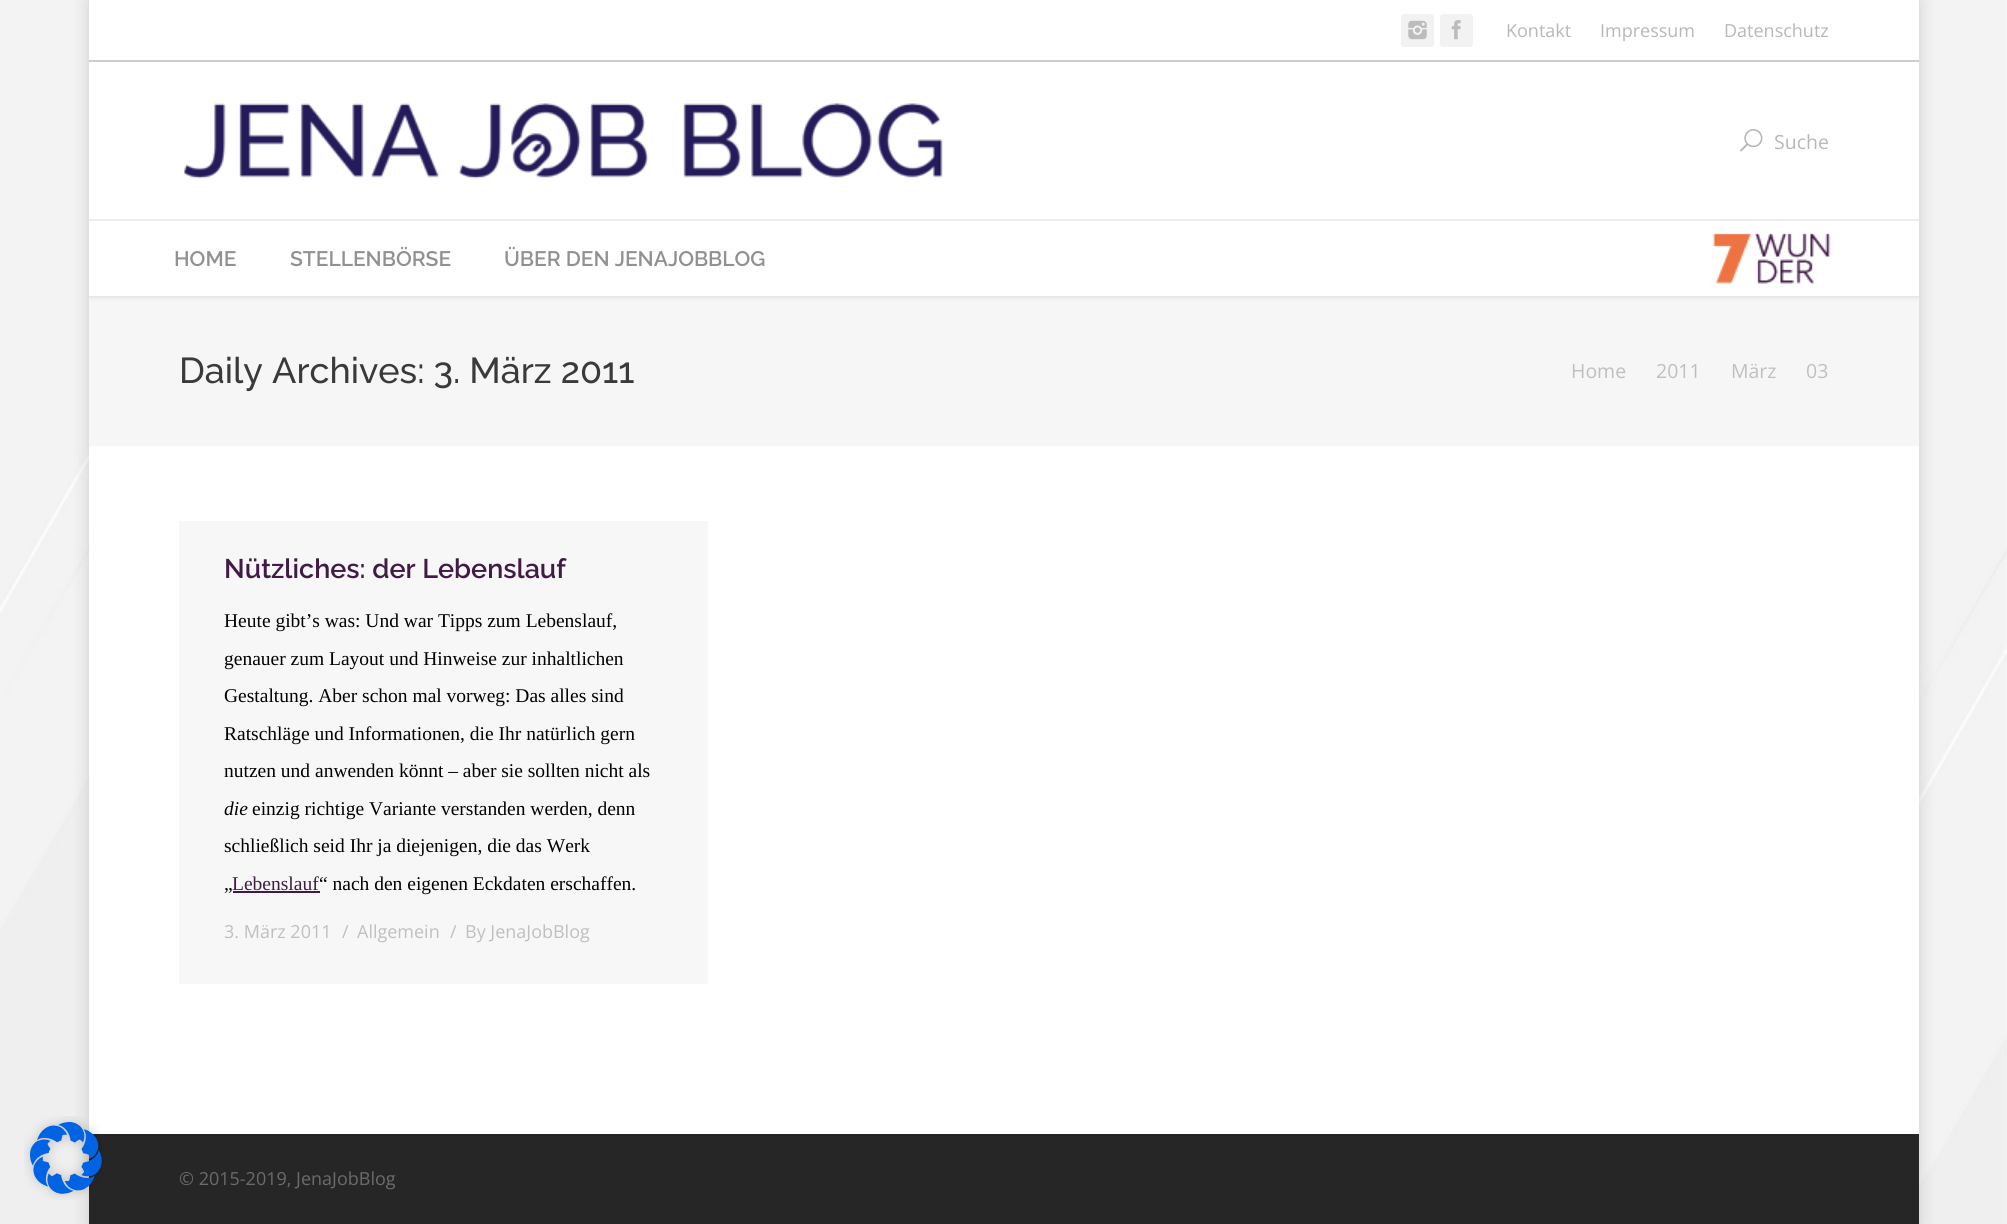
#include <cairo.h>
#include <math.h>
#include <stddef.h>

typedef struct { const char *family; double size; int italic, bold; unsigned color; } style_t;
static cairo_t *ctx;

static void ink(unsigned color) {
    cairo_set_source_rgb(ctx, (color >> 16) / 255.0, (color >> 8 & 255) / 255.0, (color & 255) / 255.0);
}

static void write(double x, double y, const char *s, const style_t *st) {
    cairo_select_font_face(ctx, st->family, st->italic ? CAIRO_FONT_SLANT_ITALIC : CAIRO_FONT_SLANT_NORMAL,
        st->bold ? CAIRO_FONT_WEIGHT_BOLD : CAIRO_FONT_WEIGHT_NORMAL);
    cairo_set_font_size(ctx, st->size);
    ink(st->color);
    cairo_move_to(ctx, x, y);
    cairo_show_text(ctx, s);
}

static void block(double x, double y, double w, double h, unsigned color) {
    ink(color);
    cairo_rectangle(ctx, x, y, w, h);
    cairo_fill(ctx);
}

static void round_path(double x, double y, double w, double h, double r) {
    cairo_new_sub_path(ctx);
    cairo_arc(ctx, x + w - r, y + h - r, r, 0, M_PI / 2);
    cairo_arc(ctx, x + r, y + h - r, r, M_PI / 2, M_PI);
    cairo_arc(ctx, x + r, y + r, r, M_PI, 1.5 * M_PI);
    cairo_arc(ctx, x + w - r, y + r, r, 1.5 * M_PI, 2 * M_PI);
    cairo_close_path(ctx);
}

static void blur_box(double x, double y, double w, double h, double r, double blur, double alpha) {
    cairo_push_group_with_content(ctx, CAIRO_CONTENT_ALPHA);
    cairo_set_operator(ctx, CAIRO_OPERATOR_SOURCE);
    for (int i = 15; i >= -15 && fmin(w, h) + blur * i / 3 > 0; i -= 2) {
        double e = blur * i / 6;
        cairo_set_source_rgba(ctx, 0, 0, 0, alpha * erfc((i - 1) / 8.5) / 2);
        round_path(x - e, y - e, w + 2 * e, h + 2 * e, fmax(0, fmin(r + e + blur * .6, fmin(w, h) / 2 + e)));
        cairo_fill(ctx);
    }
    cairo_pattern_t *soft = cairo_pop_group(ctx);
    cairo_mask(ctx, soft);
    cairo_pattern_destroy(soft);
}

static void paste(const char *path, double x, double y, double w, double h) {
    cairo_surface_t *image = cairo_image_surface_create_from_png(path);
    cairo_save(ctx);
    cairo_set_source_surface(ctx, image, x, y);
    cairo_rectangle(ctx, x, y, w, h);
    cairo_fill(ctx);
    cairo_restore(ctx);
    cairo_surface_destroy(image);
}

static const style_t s1 = {"Open Sans", 18, 0, 0, 0xb7b7b7};
static const style_t s2 = {"Open Sans", 19.5, 0, 0, 0xb7b7b7};
static const style_t s3 = {"Raleway SemiBold", 21, 0, 0, 0x919191};
static const style_t s4 = {"Raleway Medium", 36, 0, 0, 0x3a3a3a};
static const style_t s5 = {"Open Sans", 19.5, 0, 0, 0xbfbfbf};
static const style_t s6 = {"Raleway SemiBold", 27, 0, 0, 0x411b46};
static const style_t s7 = {"Liberation Serif", 19.5, 0, 0, 0x000000};
static const style_t s8 = {"Liberation Serif", 19.5, 1, 0, 0x000000};
static const style_t s9 = {"Liberation Serif", 19.5, 0, 0, 0x411b46};
static const style_t s10 = {"Open Sans", 18, 0, 0, 0xbfbfbf};
static const style_t s11 = {"Open Sans", 18, 0, 0, 0x6b6b6b};

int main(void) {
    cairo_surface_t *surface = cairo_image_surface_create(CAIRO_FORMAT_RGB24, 2007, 1224);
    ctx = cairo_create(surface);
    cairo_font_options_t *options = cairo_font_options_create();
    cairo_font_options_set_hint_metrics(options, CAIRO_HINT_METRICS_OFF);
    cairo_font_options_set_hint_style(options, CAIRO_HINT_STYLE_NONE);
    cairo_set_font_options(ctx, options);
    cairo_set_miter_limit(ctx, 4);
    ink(0xffffff);
    cairo_paint(ctx);
    paste("pic1.png", 0, 0, 2007, 1224);
    ink(0x000000);
    blur_box(89, 0, 1830, 1224, 0, 9, 0.15);
    block(89, 446, 1830, 688, 0xffffff);
    block(89, 1134, 1830, 90, 0x262626);
    paste("pic2.png", 24, 1116, 78, 84);
    block(89, 296, 1830, 150, 0xf6f6f6);
    cairo_save(ctx);
    cairo_rectangle(ctx, 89, 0, 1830, 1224);
    cairo_clip(ctx);
    ink(0x000000);
    blur_box(89, 0, 1830, 296, 0, 3, 0.15);
    cairo_restore(ctx);
    block(89, 0, 1830, 296, 0xffffff);
    block(89, 60, 1830, 2, 0xcfc9d2);
    ink(0xf2f2f2);
    round_path(1401, 14, 33, 33, 3);
    cairo_fill(ctx);
    paste("pic3.png", 1408, 20, 19, 20);
    round_path(1440, 14, 33, 33, 3);
    cairo_fill(ctx);
    paste("pic4.png", 1451, 20, 10, 20);
    write(1506, 37, "Kontakt", &s1);
    write(1600, 37, "Impressum", &s1);
    write(1724, 37, "Datenschutz", &s1);
    paste("pic5.png", 184, 103, 759, 76);
    paste("pic6.png", 1740, 129, 23, 23);
    write(1774, 149, "Suche", &s2);
    block(89, 219, 1830, 2, 0xededed);
    write(174, 266, "HOME", &s3);
    write(290, 266, "STELLENBÖRSE", &s3);
    write(504, 266, "ÜBER DEN JENAJOBBLOG", &s3);
    paste("pic7.png", 1712, 233, 119, 51);
    write(179, 383, "Daily Archives: 3. März 2011", &s4);
    write(1571, 378, "Home", &s5);
    write(1656, 378, "2011", &s5);
    write(1731, 378, "März", &s5);
    write(1806, 378, "03", &s5);
    block(179, 521, 529, 463, 0xf7f7f7);
    write(224, 578, "Nützliches: der Lebenslauf", &s6);
    write(224, 627, "Heute gibt’s was: Und war Tipps zum Lebenslauf,", &s7);
    write(224, 665, "genauer zum Layout und Hinweise zur inhaltlichen", &s7);
    write(224, 702, "Gestaltung. Aber schon mal vorweg: Das alles sind", &s7);
    write(224, 740, "Ratschläge und Informationen, die Ihr natürlich gern", &s7);
    write(224, 777, "nutzen und anwenden könnt – aber sie sollten nicht als", &s7);
    write(224, 815, "die", &s8);
    write(252, 815, "einzig richtige Variante verstanden werden, denn", &s7);
    write(224, 852, "schließlich seid Ihr ja diejenigen, die das Werk", &s7);
    write(224, 890, "„", &s7);
    block(233, 891, 87, 2, 0x411b46);
    write(232, 890, "Lebenslauf", &s9);
    write(319, 890, "“ nach den eigenen Eckdaten erschaffen.", &s7);
    write(224, 938, "3. März 2011", &s10);
    write(342, 938, "/", &s10);
    write(357, 938, "Allgemein", &s10);
    write(450, 938, "/", &s10);
    write(465, 938, "By JenaJobBlog", &s10);
    write(179, 1185, "© 2015-2019, JenaJobBlog", &s11);
    cairo_surface_write_to_png(surface, "screenshot.png");
    cairo_font_options_destroy(options);
    cairo_destroy(ctx);
    cairo_surface_destroy(surface);
    return 0;
}
